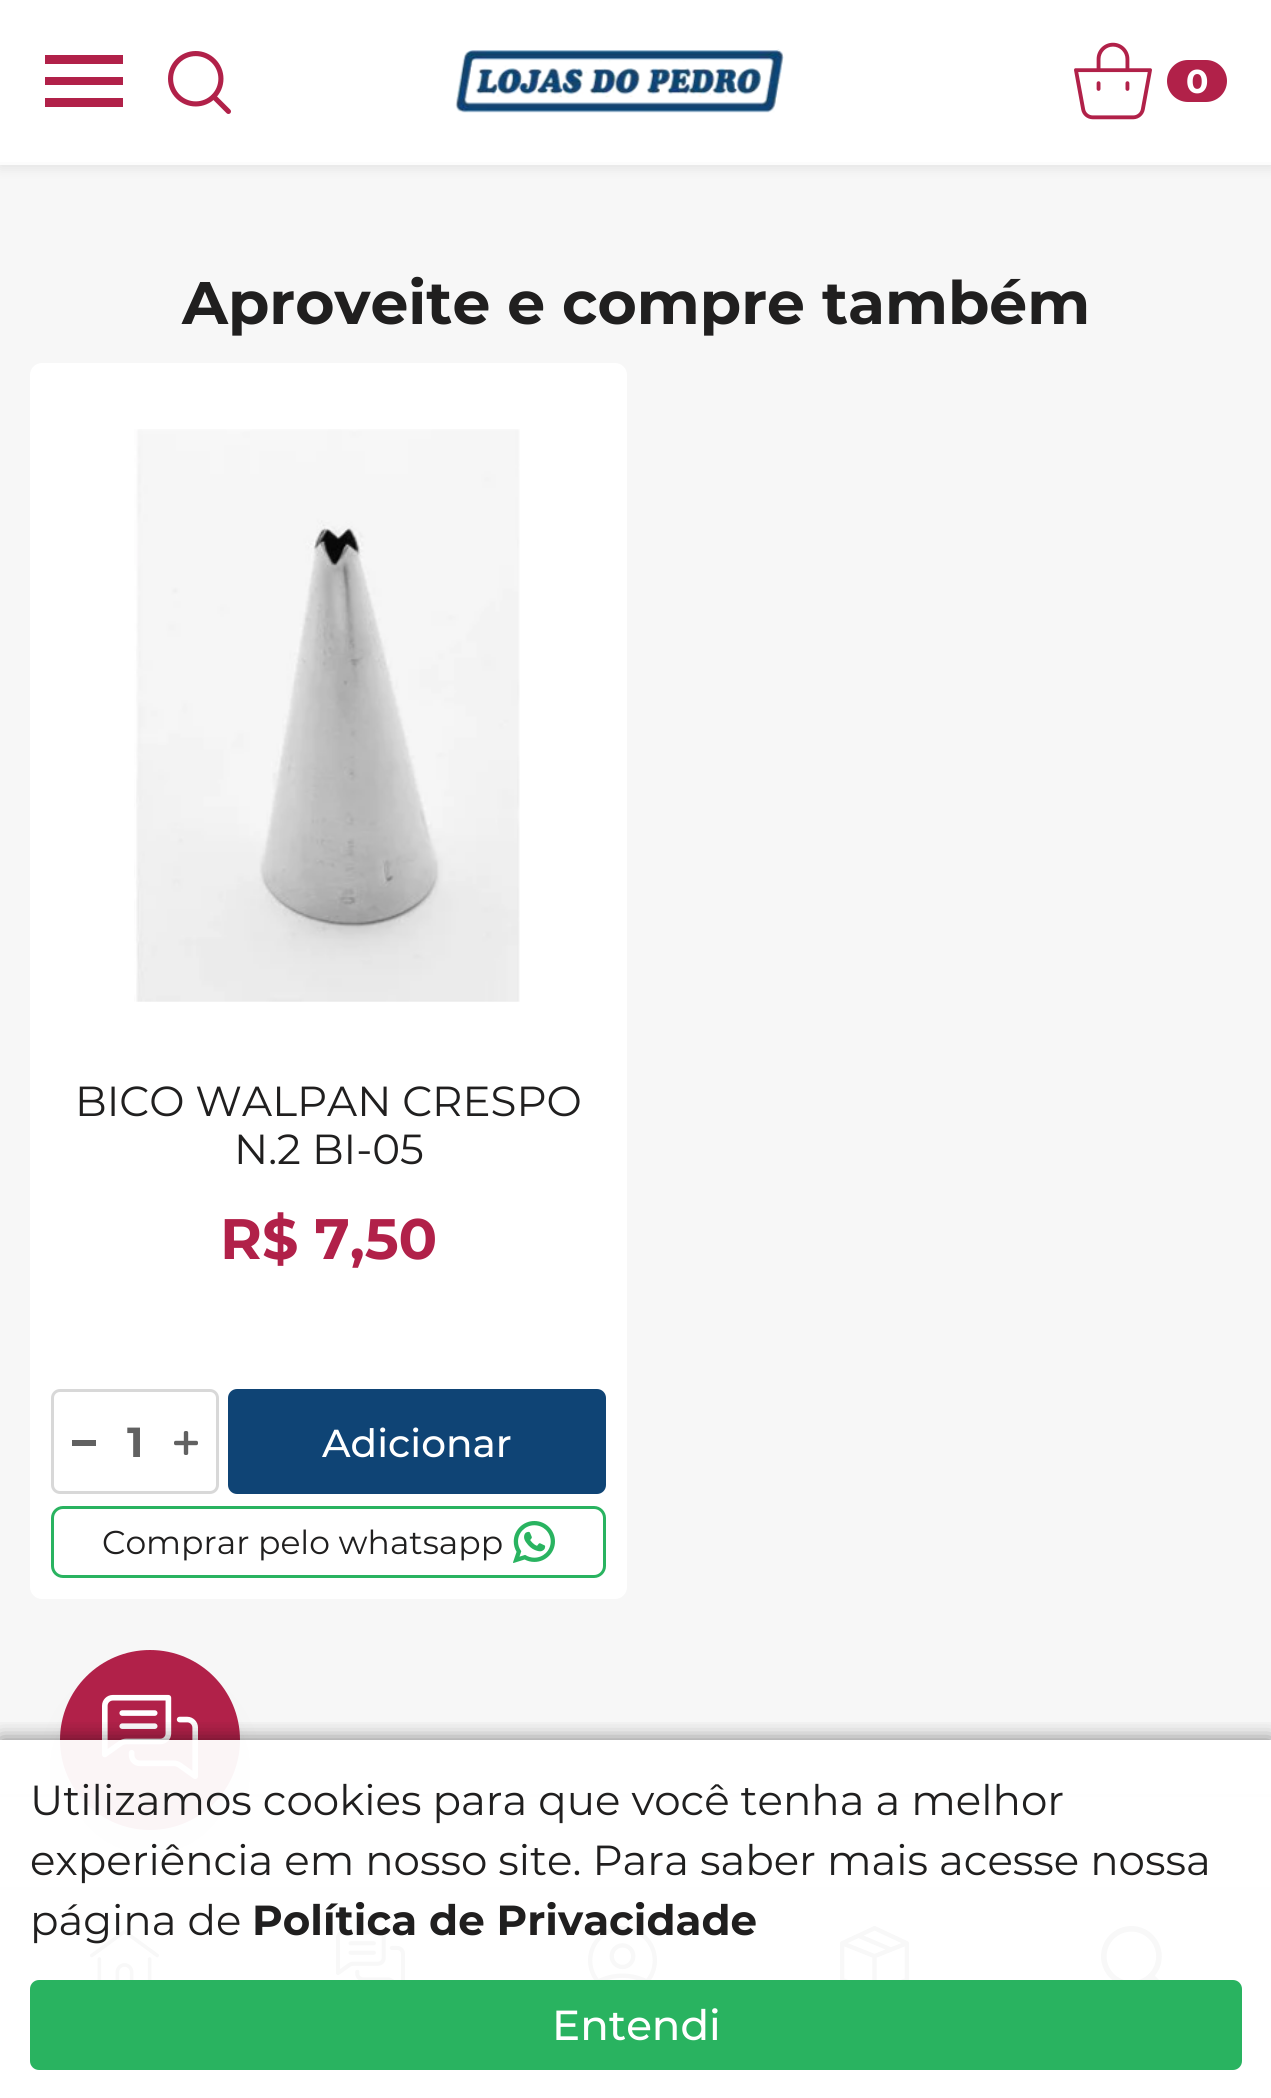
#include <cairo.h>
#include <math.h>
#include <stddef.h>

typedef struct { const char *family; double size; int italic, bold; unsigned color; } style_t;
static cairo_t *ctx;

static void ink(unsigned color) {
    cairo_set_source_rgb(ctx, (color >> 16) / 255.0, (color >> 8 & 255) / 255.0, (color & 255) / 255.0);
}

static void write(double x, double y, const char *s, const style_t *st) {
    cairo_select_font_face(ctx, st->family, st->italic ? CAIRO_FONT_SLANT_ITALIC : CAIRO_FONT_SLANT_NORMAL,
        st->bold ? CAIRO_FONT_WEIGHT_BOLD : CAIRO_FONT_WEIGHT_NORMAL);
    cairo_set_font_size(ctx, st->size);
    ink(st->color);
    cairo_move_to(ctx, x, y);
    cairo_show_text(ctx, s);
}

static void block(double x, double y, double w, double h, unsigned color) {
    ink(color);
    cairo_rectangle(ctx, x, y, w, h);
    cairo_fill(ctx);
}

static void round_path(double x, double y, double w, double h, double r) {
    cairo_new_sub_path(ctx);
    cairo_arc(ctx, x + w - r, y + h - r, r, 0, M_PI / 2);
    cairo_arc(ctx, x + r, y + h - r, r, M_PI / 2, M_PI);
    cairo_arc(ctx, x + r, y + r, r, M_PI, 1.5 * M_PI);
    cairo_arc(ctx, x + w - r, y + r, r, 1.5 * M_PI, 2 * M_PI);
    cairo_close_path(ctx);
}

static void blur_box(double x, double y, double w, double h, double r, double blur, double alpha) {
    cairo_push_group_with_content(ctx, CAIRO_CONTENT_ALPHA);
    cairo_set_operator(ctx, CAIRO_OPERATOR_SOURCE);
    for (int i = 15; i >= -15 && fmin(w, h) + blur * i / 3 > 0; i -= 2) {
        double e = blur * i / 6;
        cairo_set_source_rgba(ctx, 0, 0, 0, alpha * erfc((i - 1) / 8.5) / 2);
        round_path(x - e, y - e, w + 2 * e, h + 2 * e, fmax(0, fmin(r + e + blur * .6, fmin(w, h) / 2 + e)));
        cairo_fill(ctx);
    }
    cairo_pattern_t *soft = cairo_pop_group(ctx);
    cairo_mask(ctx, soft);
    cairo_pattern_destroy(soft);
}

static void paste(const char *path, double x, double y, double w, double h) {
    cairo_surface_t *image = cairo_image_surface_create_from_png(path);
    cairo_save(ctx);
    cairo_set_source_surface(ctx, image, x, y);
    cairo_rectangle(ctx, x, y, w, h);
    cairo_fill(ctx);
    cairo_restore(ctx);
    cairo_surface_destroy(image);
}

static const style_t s1 = {"Montserrat", 33, 0, 1, 0xffffff};
static const style_t s2 = {"Montserrat", 60, 0, 1, 0x201f1f};
static const style_t s3 = {"Montserrat", 42, 0, 0, 0x201f1f};
static const style_t s4 = {"Montserrat", 57, 0, 1, 0xb12149};
static const style_t s5 = {"Montserrat", 42, 0, 1, 0x616161};
static const style_t s6 = {"Montserrat Medium", 39, 0, 0, 0xffffff};
static const style_t s7 = {"Montserrat", 33, 0, 0, 0x201f1f};
static const style_t s8 = {"Montserrat", 42, 0, 1, 0x201f1f};
static const style_t s9 = {"Montserrat Medium", 42, 0, 0, 0xffffff};

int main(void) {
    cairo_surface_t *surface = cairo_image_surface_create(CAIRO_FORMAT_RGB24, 1271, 2098);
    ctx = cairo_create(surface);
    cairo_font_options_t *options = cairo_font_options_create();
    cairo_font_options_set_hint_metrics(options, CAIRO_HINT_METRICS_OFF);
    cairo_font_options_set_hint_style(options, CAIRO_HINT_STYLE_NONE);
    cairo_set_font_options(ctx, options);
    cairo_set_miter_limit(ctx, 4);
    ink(0xf7f7f7);
    cairo_paint(ctx);
    ink(0x525252);
    blur_box(0, 3, 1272, 165, 0, 6, 0.13);
    block(0, 0, 1271, 162, 0xffffff);
    block(0, 162, 1271, 3, 0xfcfcfc);
    block(45, 98, 78, 9, 0xb12149);
    block(45, 77, 78, 8, 0xb12149);
    block(45, 55, 78, 9, 0xb12149);
    paste("pic1.png", 168, 51, 63, 63);
    paste("pic2.png", 455, 49, 329, 64);
    paste("pic3.png", 1074, 42, 78, 78);
    round_path(1167, 60, 60, 42, 21);
    cairo_fill(ctx);
    write(1186, 93, "0", &s1);
    write(182, 324, "Aproveite e compre também", &s2);
    ink(0xffffff);
    round_path(30, 363, 597, 1236, 12);
    cairo_fill(ctx);
    paste("pic4.png", 134, 429, 386, 573);
    write(75, 1116, "BICO WALPAN CRESPO", &s3);
    write(234, 1164, "N.2 BI-05", &s3);
    write(220, 1259, "R$ 7,50", &s4);
    round_path(52.5, 1390.5, 165, 102, 7.5);
    ink(0xd8d8d8);
    cairo_set_line_width(ctx, 3);
    cairo_stroke(ctx);
    block(72, 1440, 24, 6, 0x616161);
    write(127, 1457, "1", &s5);
    paste("pic5.png", 174, 1431, 24, 24);
    ink(0x0f4475);
    round_path(228, 1389, 378, 105, 9);
    cairo_fill(ctx);
    write(322, 1457, "Adicionar", &s6);
    round_path(52.5, 1507.5, 552, 69, 10.5);
    ink(0x29b360);
    cairo_stroke(ctx);
    write(102, 1554, "Comprar pelo whatsapp", &s7);
    paste("pic6.png", 513, 1521, 42, 42);
    block(0, 1794, 1271, 3, 0xefefef);
    block(0, 1797, 1271, 90, 0xffffff);
    ink(0x676767);
    blur_box(60, 1680, 180, 180, 90, 12, 0.1);
    ink(0xb12149);
    cairo_arc(ctx, 150, 1740, 90, 0, 2 * M_PI);
    cairo_fill(ctx);
    paste("pic7.png", 102, 1694, 96, 86);
    ink(0x525252);
    blur_box(0, 1887, 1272, 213, 0, 6, 0.08);
    block(0, 1890, 1271, 208, 0xffffff);
    block(0, 1887, 1271, 3, 0xe2e2e2);
    paste("pic8.png", 90, 1929, 69, 51);
    paste("pic9.png", 336, 1930, 69, 50);
    paste("pic10.png", 588, 1926, 69, 54);
    paste("pic11.png", 840, 1926, 69, 54);
    paste("pic12.png", 1101, 1926, 61, 54);
    cairo_save(ctx);
    cairo_rectangle(ctx, 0, 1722, 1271, 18);
    cairo_clip(ctx);
    ink(0x000000);
    blur_box(0, 1740, 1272, 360, 0, 10.5, 0.5);
    cairo_restore(ctx);
    cairo_set_source_rgba(ctx, 1, 1, 1, 0.95);
    cairo_rectangle(ctx, 0, 1740, 1271, 240);
    cairo_fill(ctx);
    write(30, 1815, "Utilizamos cookies para que você tenha a melhor", &s3);
    write(30, 1875, "experiência em nosso site. Para saber mais acesse nossa", &s3);
    write(30, 1935, "página de", &s3);
    write(252, 1935, "Política de Privacidade", &s8);
    ink(0x29b360);
    round_path(30, 1980, 1212, 90, 9);
    cairo_fill(ctx);
    write(552, 2040, "Entendi", &s9);
    cairo_surface_write_to_png(surface, "screenshot.png");
    cairo_font_options_destroy(options);
    cairo_destroy(ctx);
    cairo_surface_destroy(surface);
    return 0;
}
